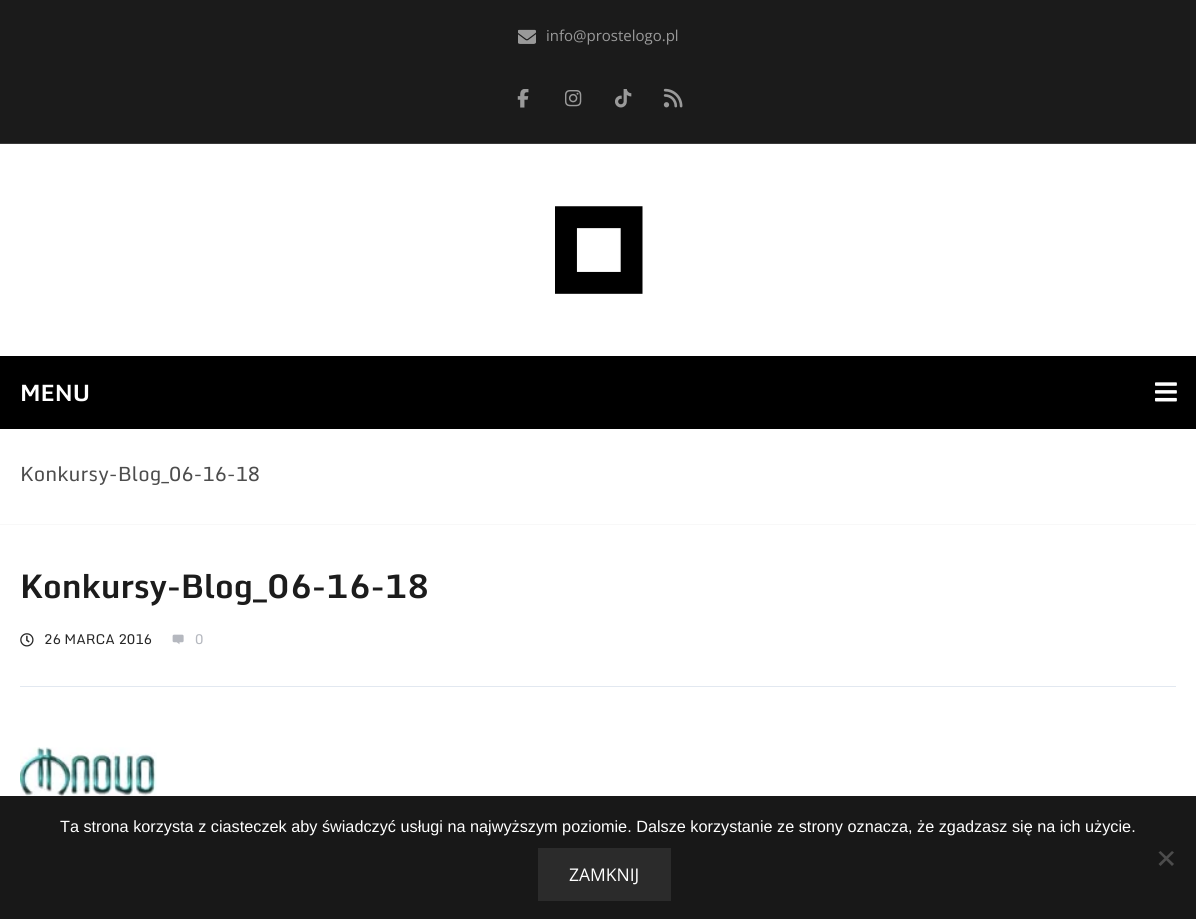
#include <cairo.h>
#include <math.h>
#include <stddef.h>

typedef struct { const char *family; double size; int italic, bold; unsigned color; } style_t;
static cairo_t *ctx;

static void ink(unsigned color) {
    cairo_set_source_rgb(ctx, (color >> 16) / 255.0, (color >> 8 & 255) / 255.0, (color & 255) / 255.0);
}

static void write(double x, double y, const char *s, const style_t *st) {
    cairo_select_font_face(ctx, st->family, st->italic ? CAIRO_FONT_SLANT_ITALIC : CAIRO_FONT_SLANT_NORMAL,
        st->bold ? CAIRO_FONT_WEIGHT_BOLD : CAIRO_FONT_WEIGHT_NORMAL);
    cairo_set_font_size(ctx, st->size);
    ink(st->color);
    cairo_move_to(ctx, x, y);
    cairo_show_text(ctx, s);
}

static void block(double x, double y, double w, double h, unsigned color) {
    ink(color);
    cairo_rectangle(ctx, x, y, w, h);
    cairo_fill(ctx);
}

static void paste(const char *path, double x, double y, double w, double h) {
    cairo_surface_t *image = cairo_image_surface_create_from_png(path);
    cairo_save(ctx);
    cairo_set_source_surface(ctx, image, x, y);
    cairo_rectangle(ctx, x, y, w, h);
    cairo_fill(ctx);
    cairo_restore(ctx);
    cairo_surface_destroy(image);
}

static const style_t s1 = {"Open Sans", 15, 0, 0, 0x999999};
static const style_t s2 = {"Monda", 22.5, 0, 1, 0xffffff};
static const style_t s3 = {"Monda", 20, 0, 0, 0x4d4d4d};
static const style_t s4 = {"Monda", 32.5, 0, 1, 0x1c1c1c};
static const style_t s5 = {"Monda", 13.75, 0, 0, 0x282828};
static const style_t s6 = {"Monda", 13.75, 0, 0, 0xb5b8bf};
static const style_t s7 = {"Liberation Sans", 16.25, 0, 0, 0xffffff};
static const style_t s8 = {"Open Sans", 17.5, 0, 0, 0xffffff};

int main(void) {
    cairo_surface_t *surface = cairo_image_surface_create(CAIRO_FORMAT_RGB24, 1196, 919);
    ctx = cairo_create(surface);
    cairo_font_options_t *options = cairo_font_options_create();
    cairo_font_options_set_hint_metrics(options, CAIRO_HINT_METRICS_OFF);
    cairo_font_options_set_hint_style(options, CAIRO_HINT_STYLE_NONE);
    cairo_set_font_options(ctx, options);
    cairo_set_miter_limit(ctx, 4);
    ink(0xffffff);
    cairo_paint(ctx);
    block(0, 0, 1196, 143, 0x1b1b1b);
    block(0, 143, 1196, 1, 0x3a3a3a);
    paste("pic1.png", 518, 29, 18, 15);
    write(546, 41, "info@prostelogo.pl", &s1);
    paste("pic2.png", 517, 89, 12, 19);
    paste("pic3.png", 565, 90, 17, 17);
    paste("pic4.png", 615, 89, 17, 19);
    paste("pic5.png", 663, 88, 20, 20);
    paste("pic6.png", 555, 206, 88, 88);
    block(0, 356, 1196, 73, 0x000000);
    write(20, 401, "MENU", &s2);
    paste("pic7.png", 1155, 382, 22, 20);
    block(0, 524, 1196, 1, 0xf8f8f8);
    write(20, 481, "Konkursy-Blog_06-16-18", &s3);
    write(20, 598, "Konkursy-Blog_06-16-18", &s4);
    block(20, 686, 1156, 1, 0xe2e8f0);
    paste("pic8.png", 20, 633, 14, 14);
    write(44, 644, "26 MARCA 2016", &s5);
    paste("pic9.png", 172, 634, 12, 11);
    write(195, 644, "0", &s6);
    paste("pic10.png", 20, 747, 137, 49);
    block(0, 796, 1196, 123, 0x181818);
    write(60, 832, "Ta strona korzysta z ciasteczek aby świadczyć usługi na najwyższym poziomie. Dalsze korzystanie ze strony oznacza, że zgadzasz się na ich użycie.", &s7);
    ink(0x4c4c4c);
    cairo_new_path(ctx);
    cairo_move_to(ctx, 1172, 851);
    cairo_line_to(ctx, 1174, 852.5);
    cairo_line_to(ctx, 1160.5, 866);
    cairo_line_to(ctx, 1158.5, 864);
    cairo_close_path(ctx);
    cairo_fill(ctx);
    cairo_new_path(ctx);
    cairo_move_to(ctx, 1158.5, 852.5);
    cairo_line_to(ctx, 1160.5, 851);
    cairo_line_to(ctx, 1174, 864);
    cairo_line_to(ctx, 1172, 866);
    cairo_close_path(ctx);
    cairo_fill(ctx);
    block(538, 848, 133, 53, 0x2b2b2b);
    write(569, 881, "ZAMKNIJ", &s8);
    cairo_surface_write_to_png(surface, "screenshot.png");
    cairo_font_options_destroy(options);
    cairo_destroy(ctx);
    cairo_surface_destroy(surface);
    return 0;
}
